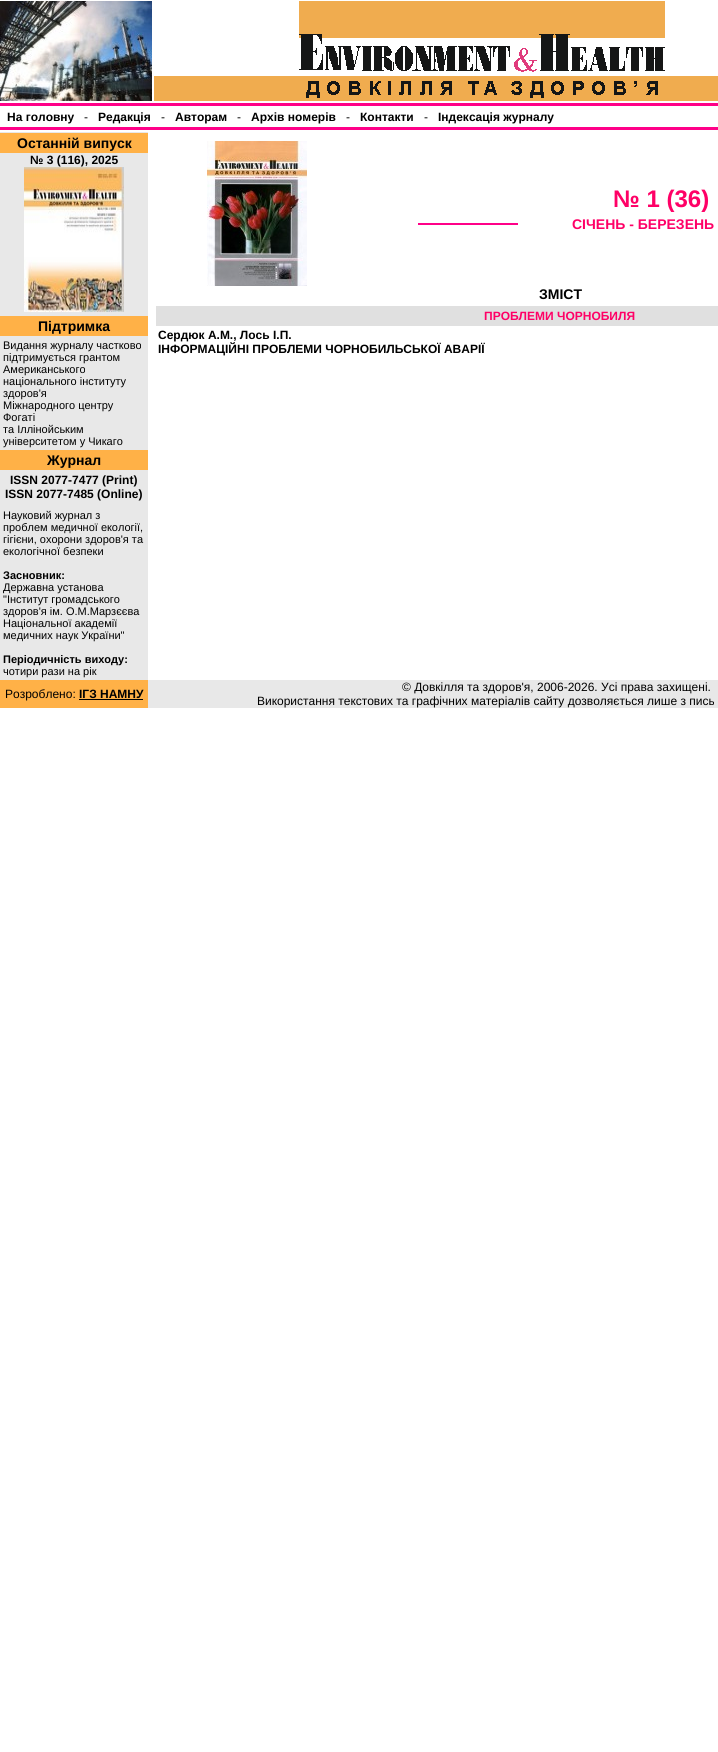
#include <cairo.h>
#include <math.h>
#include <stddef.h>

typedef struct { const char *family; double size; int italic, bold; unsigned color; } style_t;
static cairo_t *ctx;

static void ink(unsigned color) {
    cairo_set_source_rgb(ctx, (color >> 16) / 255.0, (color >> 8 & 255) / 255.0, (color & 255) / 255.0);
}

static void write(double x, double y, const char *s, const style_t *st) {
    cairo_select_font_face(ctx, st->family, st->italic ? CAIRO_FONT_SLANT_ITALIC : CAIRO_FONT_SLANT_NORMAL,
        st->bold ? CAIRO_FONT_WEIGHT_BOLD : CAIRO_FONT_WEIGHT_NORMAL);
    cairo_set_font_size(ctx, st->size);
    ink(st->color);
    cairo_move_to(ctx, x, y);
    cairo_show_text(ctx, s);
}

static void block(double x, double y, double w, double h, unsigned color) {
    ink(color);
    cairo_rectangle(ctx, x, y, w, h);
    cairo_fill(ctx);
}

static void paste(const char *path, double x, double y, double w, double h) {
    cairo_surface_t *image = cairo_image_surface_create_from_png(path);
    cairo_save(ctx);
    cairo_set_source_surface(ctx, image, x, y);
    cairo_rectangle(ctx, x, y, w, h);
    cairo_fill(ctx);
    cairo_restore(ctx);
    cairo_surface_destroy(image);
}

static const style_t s1 = {"Liberation Sans", 12, 0, 1, 0x000000};
static const style_t s2 = {"Liberation Sans", 12, 0, 0, 0x000000};
static const style_t s3 = {"Liberation Sans", 14, 0, 1, 0x000000};
static const style_t s4 = {"Liberation Sans", 11, 0, 0, 0x000000};
static const style_t s5 = {"Liberation Sans", 11, 0, 1, 0x000000};
static const style_t s6 = {"Liberation Sans", 24, 0, 1, 0xff0066};
static const style_t s7 = {"Liberation Sans", 14, 0, 1, 0xff0066};
static const style_t s8 = {"Liberation Sans", 12, 0, 1, 0xff0066};

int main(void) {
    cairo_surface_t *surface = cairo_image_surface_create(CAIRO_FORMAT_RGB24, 718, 1752);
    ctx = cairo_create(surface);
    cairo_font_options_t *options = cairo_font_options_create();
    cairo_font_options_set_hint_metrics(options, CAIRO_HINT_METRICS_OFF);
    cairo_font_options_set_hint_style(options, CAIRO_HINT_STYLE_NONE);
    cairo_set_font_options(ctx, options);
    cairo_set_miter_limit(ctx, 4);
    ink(0xffffff);
    cairo_paint(ctx);
    paste("pic1.png", 0, 1, 152, 100);
    block(154, 76, 564, 25, 0xf0ac4f);
    paste("pic2.png", 299, 1, 366, 97);
    block(0, 103, 718, 3, 0xff0088);
    write(7, 121, "На головну", &s1);
    write(84, 121, "-", &s2);
    write(98, 121, "Редакція", &s1);
    write(161, 121, "-", &s2);
    write(175, 121, "Авторам", &s1);
    write(237, 121, "-", &s2);
    write(251, 121, "Архів номерів", &s1);
    write(346, 121, "-", &s2);
    write(360, 121, "Контакти", &s1);
    write(424, 121, "-", &s2);
    write(438, 121, "Індексація журналу", &s1);
    block(0, 127, 718, 3, 0xff0088);
    block(0, 132, 148, 548, 0xe8e8e8);
    block(0, 133, 148, 20, 0xffb147);
    write(17, 148, "Останній випуск", &s3);
    write(30, 164, "№ 3 (116), 2025", &s1);
    paste("pic3.png", 24, 167, 100, 145);
    block(0, 316, 148, 20, 0xffb147);
    write(38, 331, "Підтримка", &s3);
    write(3, 349, "Видання журналу частково", &s4);
    write(3, 361, "підтримується грантом", &s4);
    write(3, 373, "Американського", &s4);
    write(3, 385, "національного інституту", &s4);
    write(3, 397, "здоров'я", &s4);
    write(3, 409, "Міжнародного центру", &s4);
    write(3, 421, "Фогаті", &s4);
    write(3, 433, "та Іллінойським", &s4);
    write(3, 445, "університетом у Чикаго", &s4);
    block(0, 450, 148, 20, 0xffb147);
    write(47, 465, "Журнал", &s3);
    write(10, 484, "ISSN 2077-7477 (Print)", &s1);
    write(5, 498, "ISSN 2077-7485 (Online)", &s1);
    write(3, 519, "Науковий журнал з", &s4);
    write(3, 531, "проблем медичної екології,", &s4);
    write(3, 543, "гігієни, охорони здоров'я та", &s4);
    write(3, 555, "екологічної безпеки", &s4);
    write(3, 579, "Засновник:", &s5);
    write(3, 591, "Державна установа", &s4);
    write(3, 603, "\"Інститут громадського", &s4);
    write(3, 615, "здоров'я ім. О.М.Марзєєва", &s4);
    write(3, 627, "Національної академії", &s4);
    write(3, 639, "медичних наук України\"", &s4);
    write(3, 663, "Періодичність виходу:", &s5);
    write(3, 675, "чотири рази на рік", &s4);
    paste("pic4.png", 207, 141, 100, 145);
    write(613, 207, "№ 1 (36)", &s6);
    block(418, 223, 100, 2, 0xff0088);
    write(572, 229, "СІЧЕНЬ - БЕРЕЗЕНЬ", &s7);
    write(539, 299, "ЗМІСТ", &s3);
    block(156, 306, 562, 20, 0xe0e0e0);
    write(484, 320, "ПРОБЛЕМИ ЧОРНОБИЛЯ", &s8);
    write(158, 339, "Сердюк А.М., Лось І.П.", &s1);
    write(158, 353, "ІНФОРМАЦІЙНІ ПРОБЛЕМИ ЧОРНОБИЛЬСЬКОЇ АВАРІЇ", &s1);
    block(0, 680, 148, 28, 0xffb147);
    write(5, 698, "Розроблено:", &s2);
    write(79, 698, "ІГЗ НАМНУ", &s1);
    block(79, 699, 64, 1, 0x000000);
    block(148, 680, 570, 28, 0xe8e8e8);
    write(402, 691, "© Довкілля та здоров'я, 2006-2026. Усі права захищені.", &s2);
    write(257, 705, "Використання текстових та графічних матеріалів сайту дозволяється лише з пись", &s2);
    cairo_surface_write_to_png(surface, "screenshot.png");
    cairo_font_options_destroy(options);
    cairo_destroy(ctx);
    cairo_surface_destroy(surface);
    return 0;
}
